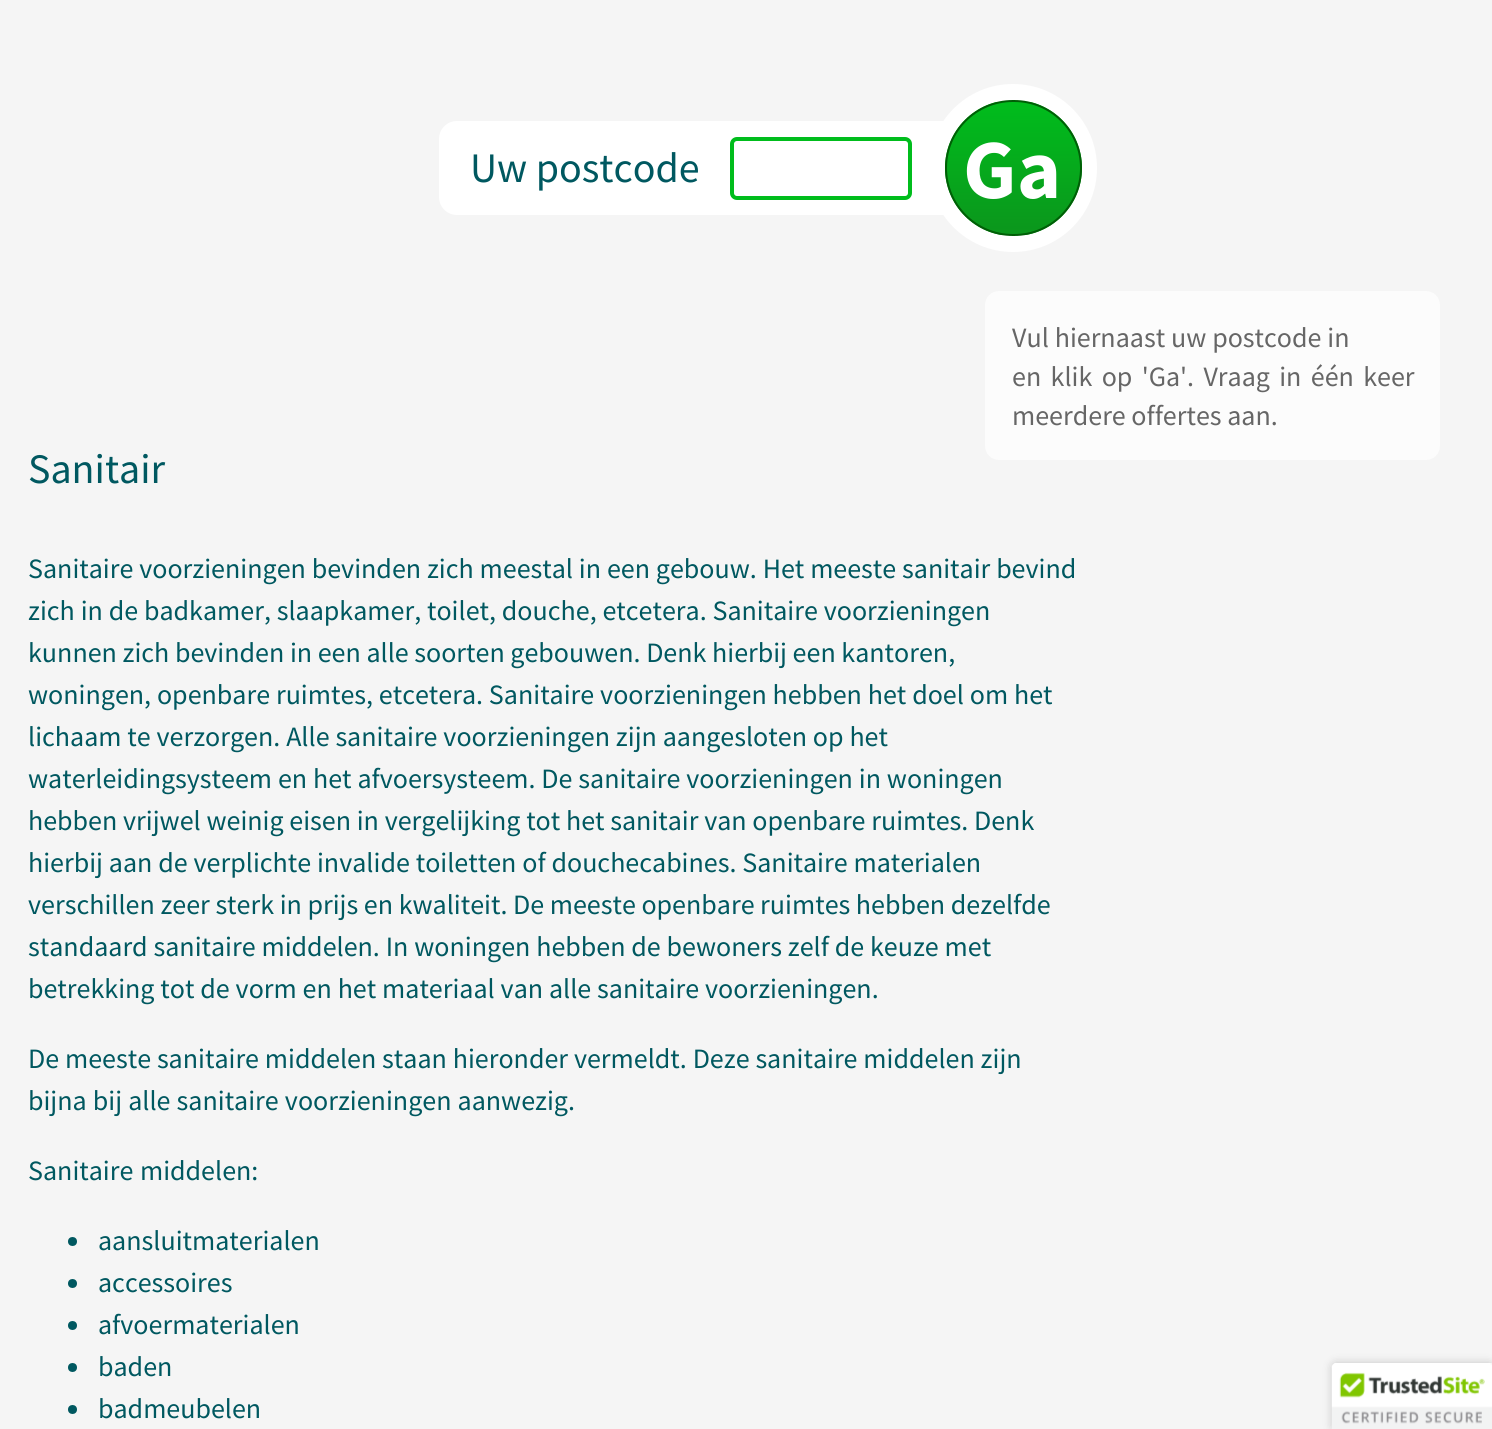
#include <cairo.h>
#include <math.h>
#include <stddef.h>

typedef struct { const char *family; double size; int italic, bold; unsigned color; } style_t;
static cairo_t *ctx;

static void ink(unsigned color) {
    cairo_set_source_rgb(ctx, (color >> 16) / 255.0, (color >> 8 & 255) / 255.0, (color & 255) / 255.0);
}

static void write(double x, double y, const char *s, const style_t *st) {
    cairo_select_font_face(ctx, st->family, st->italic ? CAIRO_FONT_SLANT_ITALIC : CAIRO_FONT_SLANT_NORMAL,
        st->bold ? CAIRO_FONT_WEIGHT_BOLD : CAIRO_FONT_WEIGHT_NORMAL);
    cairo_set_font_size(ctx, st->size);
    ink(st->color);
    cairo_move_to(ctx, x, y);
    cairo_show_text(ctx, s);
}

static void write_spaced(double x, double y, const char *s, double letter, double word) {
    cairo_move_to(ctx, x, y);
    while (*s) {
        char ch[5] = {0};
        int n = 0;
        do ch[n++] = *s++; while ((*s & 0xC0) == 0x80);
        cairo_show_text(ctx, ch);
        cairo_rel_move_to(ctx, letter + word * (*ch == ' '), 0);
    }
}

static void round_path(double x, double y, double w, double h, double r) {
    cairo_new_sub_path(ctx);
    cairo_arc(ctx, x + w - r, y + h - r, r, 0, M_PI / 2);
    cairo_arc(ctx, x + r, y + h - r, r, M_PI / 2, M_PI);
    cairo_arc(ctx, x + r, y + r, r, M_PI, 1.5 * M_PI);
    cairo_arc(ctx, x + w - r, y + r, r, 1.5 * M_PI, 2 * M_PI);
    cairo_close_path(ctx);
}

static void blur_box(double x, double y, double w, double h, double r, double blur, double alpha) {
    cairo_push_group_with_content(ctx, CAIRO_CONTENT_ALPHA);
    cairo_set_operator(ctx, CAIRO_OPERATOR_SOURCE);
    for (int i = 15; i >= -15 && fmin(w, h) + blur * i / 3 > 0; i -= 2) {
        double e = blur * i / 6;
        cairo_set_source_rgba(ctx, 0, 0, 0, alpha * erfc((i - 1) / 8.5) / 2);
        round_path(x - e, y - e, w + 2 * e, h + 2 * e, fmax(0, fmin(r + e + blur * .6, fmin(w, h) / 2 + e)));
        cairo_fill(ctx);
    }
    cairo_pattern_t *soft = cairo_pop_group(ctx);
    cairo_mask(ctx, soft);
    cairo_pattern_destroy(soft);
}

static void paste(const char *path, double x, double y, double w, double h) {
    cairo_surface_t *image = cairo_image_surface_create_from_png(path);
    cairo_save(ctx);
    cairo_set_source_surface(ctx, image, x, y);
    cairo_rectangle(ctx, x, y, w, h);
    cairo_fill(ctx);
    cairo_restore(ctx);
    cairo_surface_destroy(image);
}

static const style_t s1 = {"Source Sans Pro", 42, 0, 0, 0x005860};
static const style_t s2 = {"Source Sans Pro", 84, 0, 1, 0xffffff};
static const style_t s3 = {"Source Sans Pro", 28, 0, 0, 0x666666};
static const style_t s4 = {"Source Sans Pro", 28, 0, 0, 0x005860};

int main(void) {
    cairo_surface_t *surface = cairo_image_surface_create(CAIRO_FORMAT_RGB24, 1492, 1429);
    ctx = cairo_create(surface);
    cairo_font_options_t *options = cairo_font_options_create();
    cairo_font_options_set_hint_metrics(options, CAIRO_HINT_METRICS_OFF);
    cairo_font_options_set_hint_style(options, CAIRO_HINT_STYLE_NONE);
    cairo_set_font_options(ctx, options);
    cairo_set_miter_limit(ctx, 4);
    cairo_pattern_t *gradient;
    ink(0xf5f5f5);
    cairo_paint(ctx);
    ink(0xffffff);
    round_path(439, 121, 525, 94, 18);
    cairo_fill(ctx);
    write(470, 182, "Uw postcode", &s1);
    round_path(732, 139, 178, 59, 5);
    ink(0x00bd1c);
    cairo_set_line_width(ctx, 4);
    cairo_stroke(ctx);
    ink(0xffffff);
    cairo_arc(ctx, 1013, 168, 84, 0, 2 * M_PI);
    cairo_fill(ctx);
    cairo_save(ctx);
    round_path(945, 100, 137, 136, 68);
    cairo_clip(ctx);
    gradient = cairo_pattern_create_linear(1013, 101, 1013, 235);
    cairo_pattern_add_color_stop_rgba(gradient, 0, 0, 0.741, 0.11, 1);
    cairo_pattern_add_color_stop_rgba(gradient, 1, 0.043, 0.588, 0.11, 1);
    cairo_set_source(ctx, gradient);
    cairo_pattern_destroy(gradient);
    cairo_rectangle(ctx, 945, 102, 137, 133);
    cairo_fill(ctx);
    cairo_restore(ctx);
    round_path(946, 101, 135, 134, 67);
    ink(0x005e06);
    cairo_set_line_width(ctx, 2);
    cairo_stroke(ctx);
    write(963, 198, "Ga", &s2);
    ink(0xfcfcfc);
    round_path(985, 291, 455, 169, 14);
    cairo_fill(ctx);
    cairo_select_font_face(ctx, "Source Sans Pro", CAIRO_FONT_SLANT_NORMAL, CAIRO_FONT_WEIGHT_NORMAL);
    cairo_set_font_size(ctx, 28);
    ink(0x666666);
    write_spaced(1012, 347, "Vul hiernaast uw postcode in", 0, 0.25);
    write_spaced(1012, 386, "en klik op 'Ga'. Vraag in één keer", 0, 3.75);
    write(1012, 425, "meerdere offertes aan.", &s3);
    write(28, 483, "Sanitair", &s1);
    cairo_set_font_size(ctx, 28);
    write_spaced(28, 578, "Sanitaire voorzieningen bevinden zich meestal in een gebouw. Het meeste sanitair bevind", 0, 0.25);
    write_spaced(28, 620, "zich in de badkamer, slaapkamer, toilet, douche, etcetera. Sanitaire voorzieningen", 0, 0.25);
    write(28, 662, "kunnen zich bevinden in een alle soorten gebouwen. Denk hierbij een kantoren,", &s4);
    write_spaced(28, 704, "woningen, openbare ruimtes, etcetera. Sanitaire voorzieningen hebben het doel om het", 0, 0.25);
    write_spaced(28, 746, "lichaam te verzorgen. Alle sanitaire voorzieningen zijn aangesloten op het", 0, 0.25);
    write_spaced(28, 788, "waterleidingsysteem en het afvoersysteem. De sanitaire voorzieningen in woningen", 0, 0.25);
    write_spaced(28, 830, "hebben vrijwel weinig eisen in vergelijking tot het sanitair van openbare ruimtes. Denk", 0, 0.1);
    write_spaced(28, 872, "hierbij aan de verplichte invalide toiletten of douchecabines. Sanitaire materialen", 0, 0.25);
    write(28, 914, "verschillen zeer sterk in prijs en kwaliteit. De meeste openbare ruimtes hebben dezelfde", &s4);
    write_spaced(28, 956, "standaard sanitaire middelen. In woningen hebben de bewoners zelf de keuze met", 0, 0.25);
    write_spaced(28, 998, "betrekking tot de vorm en het materiaal van alle sanitaire voorzieningen.", 0, 0.25);
    write_spaced(28, 1068, "De meeste sanitaire middelen staan hieronder vermeldt. Deze sanitaire middelen zijn", 0, 0.25);
    write_spaced(28, 1110, "bijna bij alle sanitaire voorzieningen aanwezig.", 0, 0.5);
    write_spaced(28, 1180, "Sanitaire middelen:", 0, 1);
    cairo_new_path(ctx);
    cairo_arc(ctx, 72.5, 1241.5, 4.5, 0, 2 * M_PI);
    cairo_fill(ctx);
    write(98, 1250, "aansluitmaterialen", &s4);
    cairo_new_path(ctx);
    cairo_arc(ctx, 72.5, 1283.5, 4.5, 0, 2 * M_PI);
    cairo_fill(ctx);
    write(98, 1292, "accessoires", &s4);
    cairo_new_path(ctx);
    cairo_arc(ctx, 72.5, 1325.5, 4.5, 0, 2 * M_PI);
    cairo_fill(ctx);
    write(98, 1334, "afvoermaterialen", &s4);
    cairo_new_path(ctx);
    cairo_arc(ctx, 72.5, 1367.5, 4.5, 0, 2 * M_PI);
    cairo_fill(ctx);
    write(98, 1376, "baden", &s4);
    cairo_new_path(ctx);
    cairo_arc(ctx, 72.5, 1409.5, 4.5, 0, 2 * M_PI);
    cairo_fill(ctx);
    write(98, 1418, "badmeubelen", &s4);
    ink(0x000000);
    blur_box(1332, 1363, 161, 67, 4, 4.5, 0.2);
    ink(0xffffff);
    cairo_new_path(ctx);
    cairo_move_to(ctx, 1336, 1363);
    cairo_line_to(ctx, 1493, 1363);
    cairo_line_to(ctx, 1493, 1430);
    cairo_line_to(ctx, 1332, 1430);
    cairo_line_to(ctx, 1332, 1367);
    cairo_curve_to(ctx, 1332, 1365, 1334, 1363, 1336, 1363);
    cairo_close_path(ctx);
    cairo_fill(ctx);
    paste("pic1.png", 1331, 1363, 161, 66);
    cairo_surface_write_to_png(surface, "screenshot.png");
    cairo_font_options_destroy(options);
    cairo_destroy(ctx);
    cairo_surface_destroy(surface);
    return 0;
}
